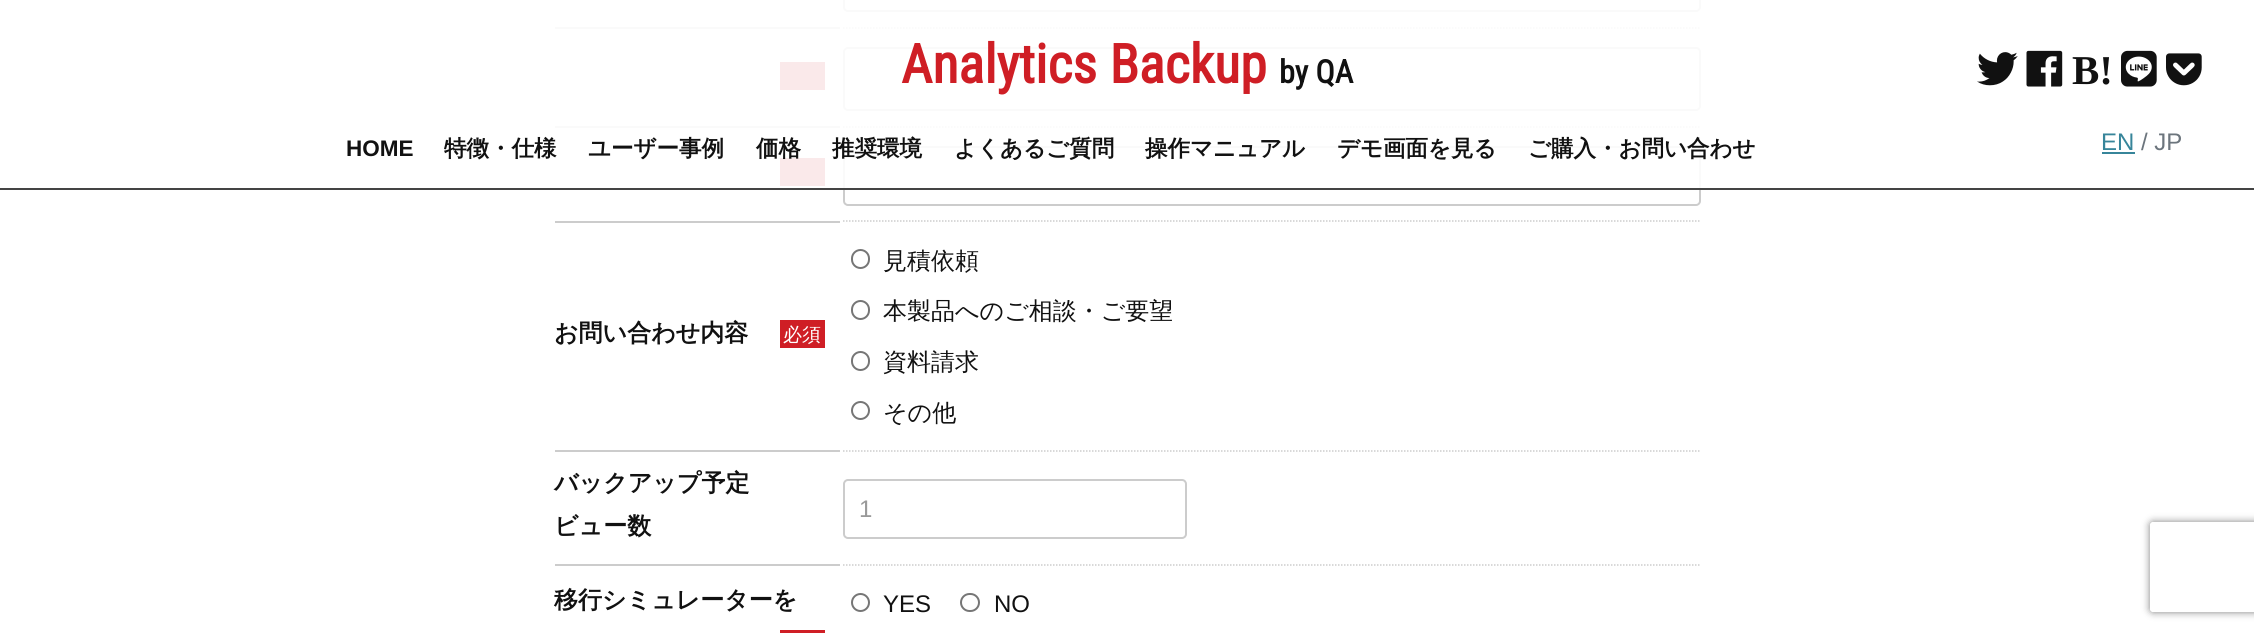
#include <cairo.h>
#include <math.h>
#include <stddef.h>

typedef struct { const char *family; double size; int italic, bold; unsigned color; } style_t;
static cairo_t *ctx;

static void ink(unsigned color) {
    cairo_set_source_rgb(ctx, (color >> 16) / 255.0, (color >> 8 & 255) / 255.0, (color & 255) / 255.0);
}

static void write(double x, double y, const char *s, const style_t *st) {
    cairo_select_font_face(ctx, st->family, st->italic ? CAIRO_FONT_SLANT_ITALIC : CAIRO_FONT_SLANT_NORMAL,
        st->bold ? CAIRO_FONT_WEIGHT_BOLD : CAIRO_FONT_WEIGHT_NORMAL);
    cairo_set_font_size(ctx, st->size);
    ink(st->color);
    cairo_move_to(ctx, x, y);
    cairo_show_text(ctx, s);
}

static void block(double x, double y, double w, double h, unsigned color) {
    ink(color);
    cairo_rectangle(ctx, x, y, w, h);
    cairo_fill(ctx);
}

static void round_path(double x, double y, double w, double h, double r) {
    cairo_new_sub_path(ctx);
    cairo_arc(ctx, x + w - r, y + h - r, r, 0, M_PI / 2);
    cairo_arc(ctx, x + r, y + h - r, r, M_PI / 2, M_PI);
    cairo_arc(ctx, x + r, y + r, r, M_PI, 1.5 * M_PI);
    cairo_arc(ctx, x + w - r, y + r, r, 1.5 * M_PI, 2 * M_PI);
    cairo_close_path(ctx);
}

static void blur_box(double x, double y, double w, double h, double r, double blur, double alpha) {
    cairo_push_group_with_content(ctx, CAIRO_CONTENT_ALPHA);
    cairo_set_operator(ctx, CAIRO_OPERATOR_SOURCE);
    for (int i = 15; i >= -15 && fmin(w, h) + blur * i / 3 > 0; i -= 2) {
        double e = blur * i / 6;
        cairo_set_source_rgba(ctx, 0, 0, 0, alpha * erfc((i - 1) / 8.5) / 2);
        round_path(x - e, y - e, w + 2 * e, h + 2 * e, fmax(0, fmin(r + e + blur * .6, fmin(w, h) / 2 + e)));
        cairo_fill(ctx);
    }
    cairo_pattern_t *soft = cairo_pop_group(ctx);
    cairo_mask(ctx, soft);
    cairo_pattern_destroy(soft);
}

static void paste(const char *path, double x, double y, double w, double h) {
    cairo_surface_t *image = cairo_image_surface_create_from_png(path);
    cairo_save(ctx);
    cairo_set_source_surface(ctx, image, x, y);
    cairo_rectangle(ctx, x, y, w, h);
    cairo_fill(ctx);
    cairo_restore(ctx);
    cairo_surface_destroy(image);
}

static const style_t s1 = {"Roboto Condensed", 54, 0, 1, 0xcf1e25};
static const style_t s2 = {"Roboto Condensed", 32, 0, 1, 0x111111};
static const style_t s3 = {"Liberation Serif", 41, 0, 1, 0x111111};
static const style_t s4 = {"Liberation Sans", 22.5, 0, 1, 0x111111};
static const style_t s5 = {"WenQuanYi Zen Hei", 22.5, 0, 1, 0x111111};
static const style_t s6 = {"Liberation Sans", 24, 0, 0, 0x37859a};
static const style_t s7 = {"Liberation Sans", 24, 0, 0, 0x6c757d};
static const style_t s8 = {"WenQuanYi Zen Hei", 24, 0, 1, 0x111111};
static const style_t s9 = {"WenQuanYi Zen Hei Medium", 19, 0, 0, 0xffffff};
static const style_t s10 = {"WenQuanYi Zen Hei Medium", 24, 0, 0, 0x111111};
static const style_t s11 = {"Liberation Sans", 24, 0, 0, 0x999999};
static const style_t s12 = {"Liberation Sans", 24, 0, 0, 0x111111};

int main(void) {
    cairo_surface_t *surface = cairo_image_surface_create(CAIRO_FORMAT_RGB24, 2254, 633);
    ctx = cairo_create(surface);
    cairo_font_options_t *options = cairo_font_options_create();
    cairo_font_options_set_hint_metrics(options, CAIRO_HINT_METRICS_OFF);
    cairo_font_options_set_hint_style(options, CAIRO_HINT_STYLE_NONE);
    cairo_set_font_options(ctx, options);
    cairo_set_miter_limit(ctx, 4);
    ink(0xffffff);
    cairo_paint(ctx);
    block(555, 27, 285, 2, 0xcccccc);
    cairo_new_path(ctx);
    cairo_move_to(ctx, 843, 28);
    cairo_line_to(ctx, 1701, 28);
    cairo_set_line_width(ctx, 1.5);
    cairo_set_dash(ctx, (double[]){1.5, 1.5}, 2, 0);
    cairo_stroke(ctx);
    round_path(844, -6, 856, 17, 4);
    cairo_set_line_width(ctx, 2);
    cairo_set_dash(ctx, NULL, 0, 0);
    cairo_stroke(ctx);
    block(555, 126, 285, 2, 0xcccccc);
    block(780, 62, 45, 28, 0xcf1e25);
    cairo_new_path(ctx);
    cairo_move_to(ctx, 843, 127);
    cairo_line_to(ctx, 1701, 127);
    ink(0xcccccc);
    cairo_set_line_width(ctx, 1.5);
    cairo_set_dash(ctx, (double[]){1.5, 1.5}, 2, 0);
    cairo_stroke(ctx);
    round_path(844, 48, 856, 62, 4);
    cairo_set_line_width(ctx, 2);
    cairo_set_dash(ctx, NULL, 0, 0);
    cairo_stroke(ctx);
    block(780, 158, 45, 28, 0xcf1e25);
    round_path(844, 147, 856, 58, 4);
    ink(0xcccccc);
    cairo_stroke(ctx);
    cairo_set_source_rgba(ctx, 1, 1, 1, 0.9);
    cairo_rectangle(ctx, 555, 0, 1146, 188);
    cairo_fill(ctx);
    block(0, 188, 2254, 2, 0x444444);
    write(901, 83, "Analytics Backup", &s1);
    write(1279, 83, "by QA", &s2);
    paste("pic1.png", 1977, 52, 41, 34);
    paste("pic2.png", 2026, 50, 37, 37);
    write(2072, 84, "B!", &s3);
    paste("pic3.png", 2121, 50, 36, 37);
    paste("pic4.png", 2166, 53, 36, 33);
    write(346, 156, "HOME", &s4);
    write(444, 156, "特徴・仕様", &s5);
    write(588, 156, "ユーザー事例", &s5);
    write(756, 156, "価格", &s5);
    write(832, 156, "推奨環境", &s5);
    write(954, 156, "よくあるご質問", &s5);
    write(1145, 156, "操作マニュアル", &s5);
    write(1337, 156, "デモ画面を見る", &s5);
    write(1528, 156, "ご購入・お問い合わせ", &s5);
    write(2101, 150, "EN", &s6);
    block(2102, 152, 33, 2, 0x37859a);
    write(2141, 150, "/ JP", &s7);
    block(555, 221, 285, 2, 0xcccccc);
    cairo_new_path(ctx);
    cairo_move_to(ctx, 843, 221);
    cairo_line_to(ctx, 1701, 221);
    cairo_set_line_width(ctx, 1.5);
    cairo_set_dash(ctx, (double[]){1.5, 1.5}, 2, 0);
    cairo_stroke(ctx);
    block(555, 450, 285, 2, 0xcccccc);
    write(554, 341, "お問い合わせ内容", &s8);
    block(780, 320, 45, 28, 0xcf1e25);
    write(783, 341, "必須", &s9);
    cairo_new_path(ctx);
    cairo_move_to(ctx, 843, 451);
    cairo_line_to(ctx, 1701, 451);
    ink(0xcccccc);
    cairo_stroke(ctx);
    round_path(852, 250, 17, 18, 8.5);
    ink(0x767676);
    cairo_set_line_width(ctx, 2);
    cairo_set_dash(ctx, NULL, 0, 0);
    cairo_stroke(ctx);
    write(883, 269, "見積依頼", &s10);
    round_path(852, 301, 17, 18, 8.5);
    ink(0x767676);
    cairo_stroke(ctx);
    write(883, 319, "本製品へのご相談・ご要望", &s10);
    round_path(852, 352, 17, 18, 8.5);
    ink(0x767676);
    cairo_stroke(ctx);
    write(883, 370, "資料請求", &s10);
    cairo_new_path(ctx);
    cairo_arc(ctx, 860.5, 410.5, 8.5, 0, 2 * M_PI);
    ink(0x767676);
    cairo_stroke(ctx);
    write(883, 421, "その他", &s10);
    block(555, 564, 285, 2, 0xcccccc);
    write(554, 491, "バックアップ予定", &s8);
    write(554, 534, "ビュー数", &s8);
    cairo_new_path(ctx);
    cairo_move_to(ctx, 843, 565);
    cairo_line_to(ctx, 1701, 565);
    ink(0xcccccc);
    cairo_set_line_width(ctx, 1.5);
    cairo_set_dash(ctx, (double[]){1.5, 1.5}, 2, 0);
    cairo_stroke(ctx);
    round_path(844, 480, 342, 58, 4);
    cairo_set_line_width(ctx, 2);
    cairo_set_dash(ctx, NULL, 0, 0);
    cairo_stroke(ctx);
    write(859, 517, "1", &s11);
    write(554, 608, "移行シミュレーターを", &s8);
    block(780, 630, 45, 3, 0xcf1e25);
    cairo_new_path(ctx);
    cairo_arc(ctx, 860.5, 602.5, 8.5, 0, 2 * M_PI);
    ink(0x767676);
    cairo_stroke(ctx);
    write(883, 612, "YES", &s12);
    round_path(961, 594, 18, 17, 8.5);
    ink(0x767676);
    cairo_stroke(ctx);
    write(994, 612, "NO", &s12);
    cairo_save(ctx);
    cairo_set_fill_rule(ctx, CAIRO_FILL_RULE_EVEN_ODD);
    cairo_new_path(ctx);
    cairo_move_to(ctx, 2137, 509);
    cairo_line_to(ctx, 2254, 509);
    cairo_line_to(ctx, 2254, 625);
    cairo_line_to(ctx, 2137, 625);
    cairo_close_path(ctx);
    cairo_move_to(ctx, 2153, 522);
    cairo_line_to(ctx, 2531, 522);
    cairo_curve_to(ctx, 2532.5, 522, 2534, 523.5, 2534, 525);
    cairo_line_to(ctx, 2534, 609);
    cairo_curve_to(ctx, 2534, 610.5, 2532.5, 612, 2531, 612);
    cairo_line_to(ctx, 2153, 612);
    cairo_curve_to(ctx, 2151.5, 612, 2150, 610.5, 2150, 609);
    cairo_line_to(ctx, 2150, 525);
    cairo_curve_to(ctx, 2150, 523.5, 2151.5, 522, 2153, 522);
    cairo_close_path(ctx);
    cairo_clip(ctx);
    ink(0x808080);
    blur_box(2150, 522, 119, 90, 3, 4, 1);
    cairo_restore(ctx);
    cairo_surface_write_to_png(surface, "screenshot.png");
    cairo_font_options_destroy(options);
    cairo_destroy(ctx);
    cairo_surface_destroy(surface);
    return 0;
}
